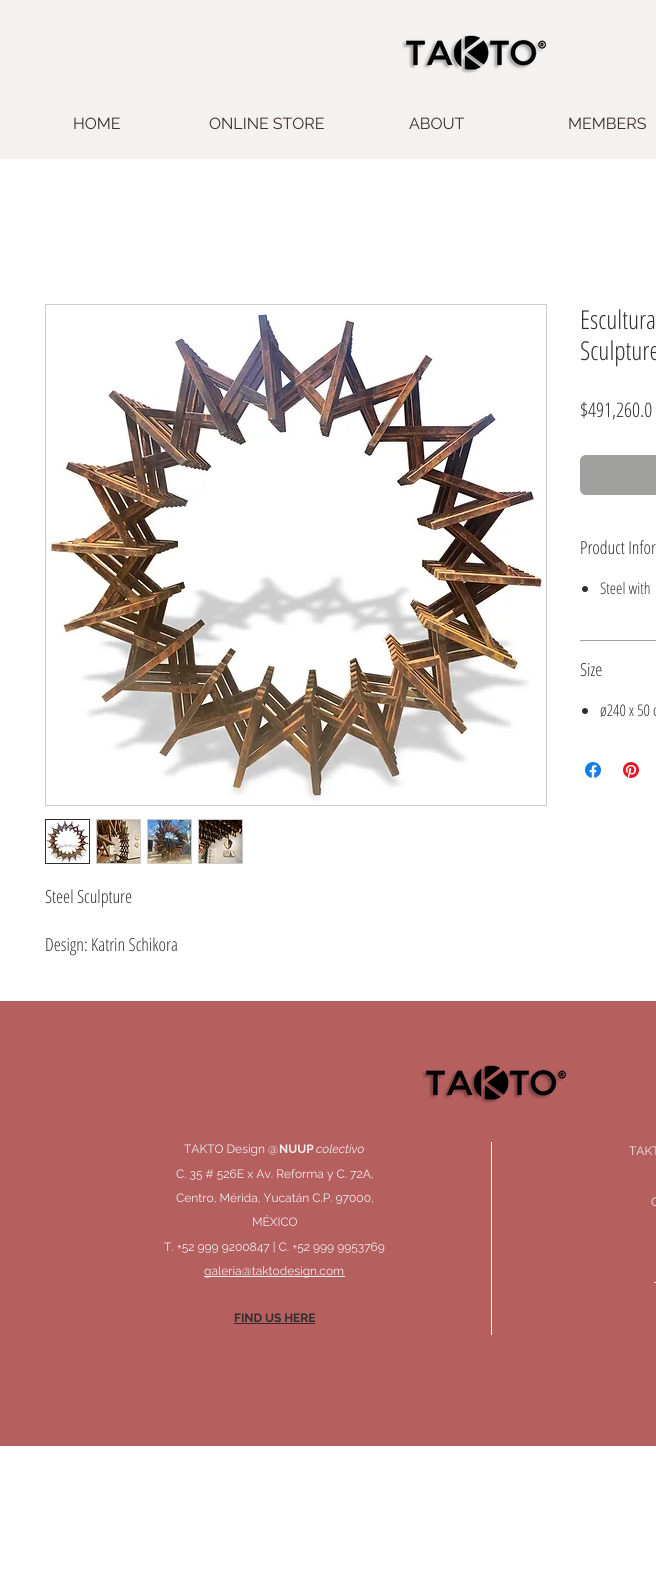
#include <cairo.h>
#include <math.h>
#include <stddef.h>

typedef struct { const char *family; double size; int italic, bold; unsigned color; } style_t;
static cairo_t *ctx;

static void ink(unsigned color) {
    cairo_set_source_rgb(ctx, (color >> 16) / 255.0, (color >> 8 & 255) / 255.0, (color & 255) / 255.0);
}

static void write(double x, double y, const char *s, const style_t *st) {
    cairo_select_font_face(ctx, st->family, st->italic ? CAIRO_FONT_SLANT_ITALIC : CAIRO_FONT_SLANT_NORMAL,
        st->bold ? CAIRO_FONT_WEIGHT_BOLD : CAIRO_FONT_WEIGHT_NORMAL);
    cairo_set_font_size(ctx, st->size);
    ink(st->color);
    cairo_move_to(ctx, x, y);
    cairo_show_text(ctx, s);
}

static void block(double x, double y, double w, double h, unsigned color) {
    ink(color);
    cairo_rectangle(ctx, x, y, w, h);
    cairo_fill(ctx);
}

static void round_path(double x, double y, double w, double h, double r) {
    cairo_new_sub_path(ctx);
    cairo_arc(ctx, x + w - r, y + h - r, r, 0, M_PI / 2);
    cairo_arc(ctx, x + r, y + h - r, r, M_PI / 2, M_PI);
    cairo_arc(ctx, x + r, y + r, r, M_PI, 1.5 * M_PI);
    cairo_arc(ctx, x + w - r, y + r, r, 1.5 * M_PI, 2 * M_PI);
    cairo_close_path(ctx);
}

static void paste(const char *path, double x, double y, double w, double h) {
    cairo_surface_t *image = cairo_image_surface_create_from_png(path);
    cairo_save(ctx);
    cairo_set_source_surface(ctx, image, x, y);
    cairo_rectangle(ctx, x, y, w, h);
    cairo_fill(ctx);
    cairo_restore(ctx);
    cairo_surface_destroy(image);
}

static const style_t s1 = {"Raleway", 16, 0, 0, 0x39312e};
static const style_t s2 = {"Open Sans Condensed Light", 26, 0, 0, 0x2f2e2e};
static const style_t s3 = {"Open Sans Condensed Light", 20, 0, 0, 0x2f2e2e};
static const style_t s4 = {"Open Sans Condensed Light", 18, 0, 0, 0x2f2e2e};
static const style_t s5 = {"Open Sans Condensed Light", 16, 0, 0, 0x2f2e2e};
static const style_t s6 = {"Raleway", 12, 0, 0, 0xf0eded};
static const style_t s7 = {"Raleway", 12, 0, 1, 0xf0eded};
static const style_t s8 = {"Raleway", 12, 1, 0, 0xf0eded};
static const style_t s9 = {"Raleway", 12, 0, 1, 0x2f2e2e};

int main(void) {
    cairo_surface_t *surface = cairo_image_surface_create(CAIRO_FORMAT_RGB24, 656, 1570);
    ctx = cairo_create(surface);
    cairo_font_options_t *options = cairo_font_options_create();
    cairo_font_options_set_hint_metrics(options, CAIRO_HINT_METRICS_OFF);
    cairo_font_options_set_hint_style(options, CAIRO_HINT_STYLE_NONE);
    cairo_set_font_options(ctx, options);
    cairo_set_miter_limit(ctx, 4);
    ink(0xffffff);
    cairo_paint(ctx);
    block(0, 0, 656, 159, 0xf4f2f0);
    paste("pic1.png", 402, 35, 144, 39);
    write(73, 129, "HOME", &s1);
    write(209, 129, "ONLINE STORE", &s1);
    write(409, 129, "ABOUT", &s1);
    write(568, 129, "MEMBERS", &s1);
    write(580, 329, "Escultura", &s2);
    write(580, 360, "Sculpture", &s2);
    write(580, 417, "$491,260.0", &s3);
    ink(0xa0a09f);
    round_path(580, 455, 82, 40, 6);
    cairo_fill(ctx);
    block(580, 640, 76, 1, 0xa0a09f);
    write(580, 554, "Product Infor", &s4);
    cairo_new_path(ctx);
    cairo_arc(ctx, 585, 589, 3, 0, 2 * M_PI);
    cairo_fill(ctx);
    write(600, 594, "Steel with", &s5);
    write(580, 676, "Size", &s4);
    cairo_new_path(ctx);
    cairo_arc(ctx, 585, 711, 3, 0, 2 * M_PI);
    cairo_fill(ctx);
    write(600, 716, "ø240 x 50 c", &s5);
    paste("pic2.png", 585, 762, 16, 16);
    paste("pic3.png", 623, 762, 16, 16);
    cairo_rectangle(ctx, 45.5, 304.5, 501, 501);
    ink(0xcccccc);
    cairo_set_line_width(ctx, 1);
    cairo_stroke(ctx);
    paste("pic4.png", 46, 313, 497, 488);
    cairo_rectangle(ctx, 45.5, 819.5, 44, 44);
    ink(0x2f2e2e);
    cairo_stroke(ctx);
    paste("pic5.png", 46, 820, 43, 43);
    block(96, 819, 45, 45, 0xcccccc);
    paste("pic6.png", 97, 820, 43, 43);
    block(147, 819, 45, 45, 0xcccccc);
    paste("pic7.png", 148, 820, 43, 43);
    block(198, 819, 45, 45, 0xcccccc);
    paste("pic8.png", 199, 820, 43, 43);
    write(45, 903, "Steel Sculpture", &s4);
    write(45, 951, "Design: Katrin Schikora", &s4);
    block(0, 1001, 656, 445, 0xb65f5f);
    paste("pic9.png", 422, 1065, 144, 39);
    write(184, 1153, "TAKTO Design @", &s6);
    write(279, 1153, "NUUP", &s7);
    write(316, 1153, "colectivo", &s8);
    write(176, 1178, "C. 35 # 526E x Av. Reforma y C. 72A,", &s6);
    write(176, 1202, "Centro, Mérida, Yucatán C.P. 97000,", &s6);
    write(252, 1226, "MÉXICO", &s6);
    write(164, 1251, "T. +52 999 9200847 | C. +52 999 9953769", &s6);
    block(204, 1276, 141, 1, 0xf0eded);
    write(204, 1275, "galeria@taktodesign.com", &s6);
    write(234, 1322, "FIND US HERE", &s9);
    block(234, 1323, 81, 1, 0x312e2b);
    block(491, 1142, 1, 193, 0xffffff);
    write(629, 1155, "TAKT", &s6);
    write(651, 1206, "C", &s6);
    block(654, 1282, 2, 1, 0xf0eded);
    cairo_surface_write_to_png(surface, "screenshot.png");
    cairo_font_options_destroy(options);
    cairo_destroy(ctx);
    cairo_surface_destroy(surface);
    return 0;
}
